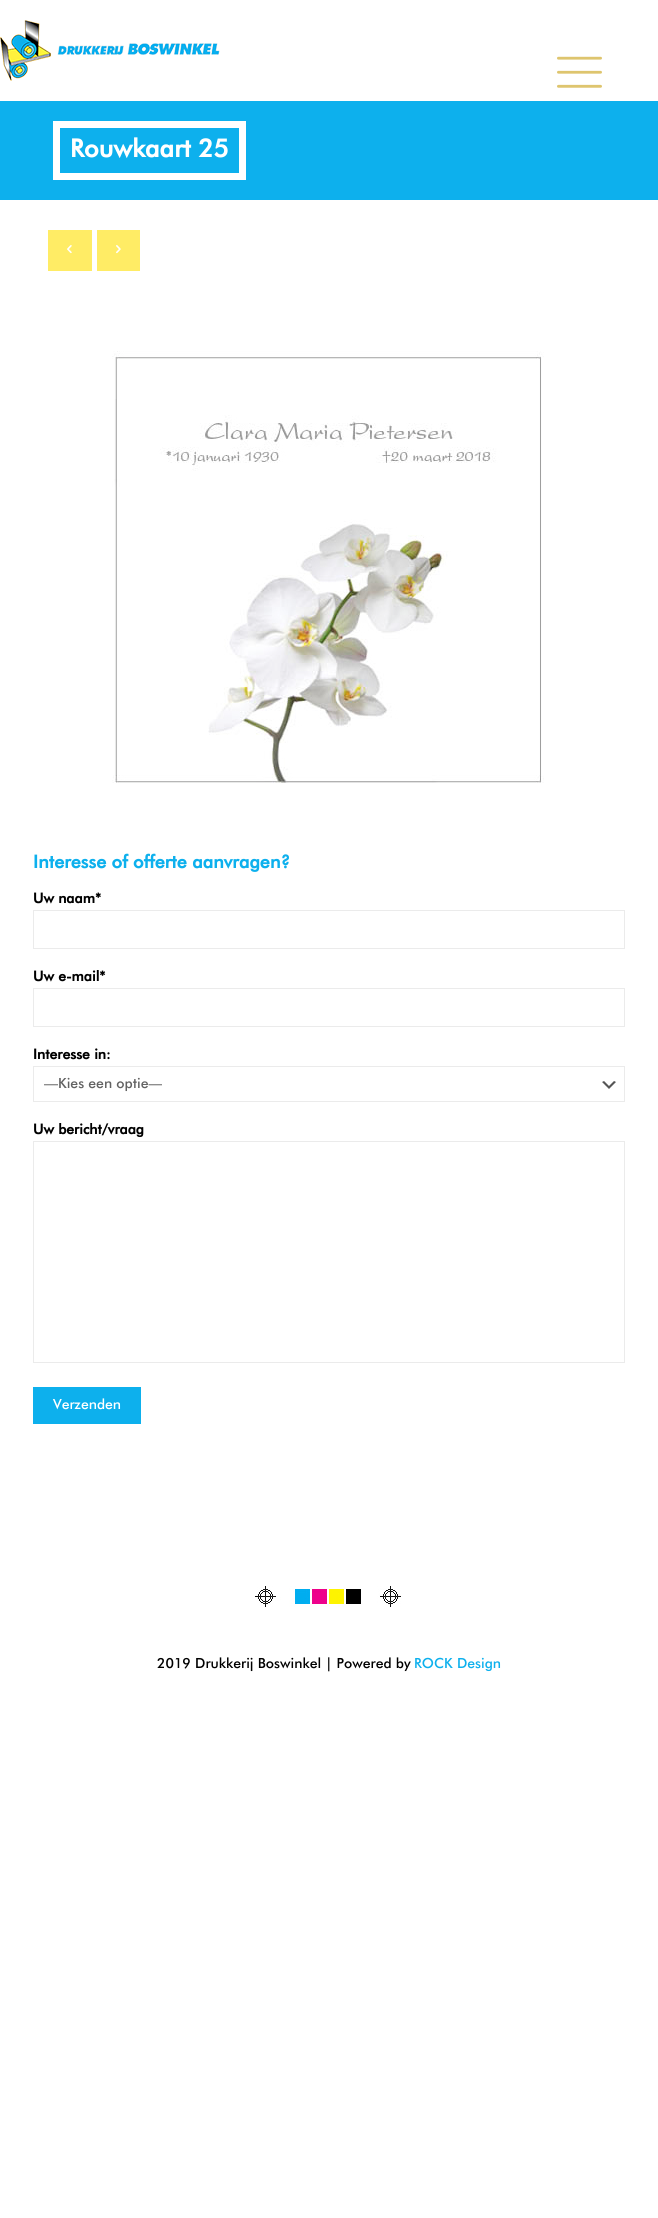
#include <cairo.h>
#include <math.h>
#include <stddef.h>

typedef struct { const char *family; double size; int italic, bold; unsigned color; } style_t;
static cairo_t *ctx;

static void ink(unsigned color) {
    cairo_set_source_rgb(ctx, (color >> 16) / 255.0, (color >> 8 & 255) / 255.0, (color & 255) / 255.0);
}

static void write(double x, double y, const char *s, const style_t *st) {
    cairo_select_font_face(ctx, st->family, st->italic ? CAIRO_FONT_SLANT_ITALIC : CAIRO_FONT_SLANT_NORMAL,
        st->bold ? CAIRO_FONT_WEIGHT_BOLD : CAIRO_FONT_WEIGHT_NORMAL);
    cairo_set_font_size(ctx, st->size);
    ink(st->color);
    cairo_move_to(ctx, x, y);
    cairo_show_text(ctx, s);
}

static void block(double x, double y, double w, double h, unsigned color) {
    ink(color);
    cairo_rectangle(ctx, x, y, w, h);
    cairo_fill(ctx);
}

static void paste(const char *path, double x, double y, double w, double h) {
    cairo_surface_t *image = cairo_image_surface_create_from_png(path);
    cairo_save(ctx);
    cairo_set_source_surface(ctx, image, x, y);
    cairo_rectangle(ctx, x, y, w, h);
    cairo_fill(ctx);
    cairo_restore(ctx);
    cairo_surface_destroy(image);
}

static const style_t s1 = {"Futura", 25, 0, 1, 0xffffff};
static const style_t s2 = {"Futura", 18, 0, 1, 0x0db0ed};
static const style_t s3 = {"Futura", 14, 0, 1, 0x000000};
static const style_t s4 = {"Futura Medium", 14, 0, 0, 0x626262};
static const style_t s5 = {"Futura Medium", 14, 0, 0, 0xffffff};
static const style_t s6 = {"Futura Medium", 14, 0, 0, 0x000000};
static const style_t s7 = {"Futura Medium", 14, 0, 0, 0x0db0ed};

int main(void) {
    cairo_surface_t *surface = cairo_image_surface_create(CAIRO_FORMAT_RGB24, 658, 2218);
    ctx = cairo_create(surface);
    cairo_font_options_t *options = cairo_font_options_create();
    cairo_font_options_set_hint_metrics(options, CAIRO_HINT_METRICS_OFF);
    cairo_font_options_set_hint_style(options, CAIRO_HINT_STYLE_NONE);
    cairo_set_font_options(ctx, options);
    cairo_set_miter_limit(ctx, 4);
    ink(0xffffff);
    cairo_paint(ctx);
    paste("pic1.png", 0, 20, 220, 61);
    paste("pic2.png", 557, 56, 45, 32);
    block(0, 101, 658, 99, 0x0db0ed);
    cairo_rectangle(ctx, 56.5, 124.5, 186, 52);
    ink(0xffffff);
    cairo_set_line_width(ctx, 7);
    cairo_stroke(ctx);
    write(70, 157, "Rouwkaart 25", &s1);
    block(48, 230, 44, 41, 0xffec65);
    paste("pic3.png", 67, 245, 5, 9);
    block(97, 230, 43, 41, 0xffec65);
    paste("pic4.png", 116, 245, 5, 9);
    paste("pic5.png", 112, 351, 432, 432);
    write(33, 868, "Interesse of offerte aanvragen?", &s2);
    write(33, 903, "Uw naam*", &s3);
    cairo_rectangle(ctx, 33.5, 910.5, 591, 38);
    ink(0xebebeb);
    cairo_set_line_width(ctx, 1);
    cairo_stroke(ctx);
    write(33, 981, "Uw e-mail*", &s3);
    cairo_rectangle(ctx, 33.5, 988.5, 591, 38);
    ink(0xebebeb);
    cairo_stroke(ctx);
    write(33, 1059, "Interesse in:", &s3);
    paste("pic6.png", 602, 1081, 14, 8);
    cairo_rectangle(ctx, 33.5, 1066.5, 591, 35);
    ink(0xebebeb);
    cairo_stroke(ctx);
    write(44, 1088, "—Kies een optie—", &s4);
    write(33, 1134, "Uw bericht/vraag", &s3);
    cairo_rectangle(ctx, 33.5, 1141.5, 591, 221);
    ink(0xebebeb);
    cairo_stroke(ctx);
    block(33, 1387, 108, 37, 0x0db0ed);
    write(53, 1409, "Verzenden", &s5);
    paste("pic7.png", 255, 1586, 146, 21);
    write(157, 1668, "2019 Drukkerij Boswinkel | Powered by", &s6);
    write(414, 1668, "ROCK Design", &s7);
    cairo_surface_write_to_png(surface, "screenshot.png");
    cairo_font_options_destroy(options);
    cairo_destroy(ctx);
    cairo_surface_destroy(surface);
    return 0;
}
